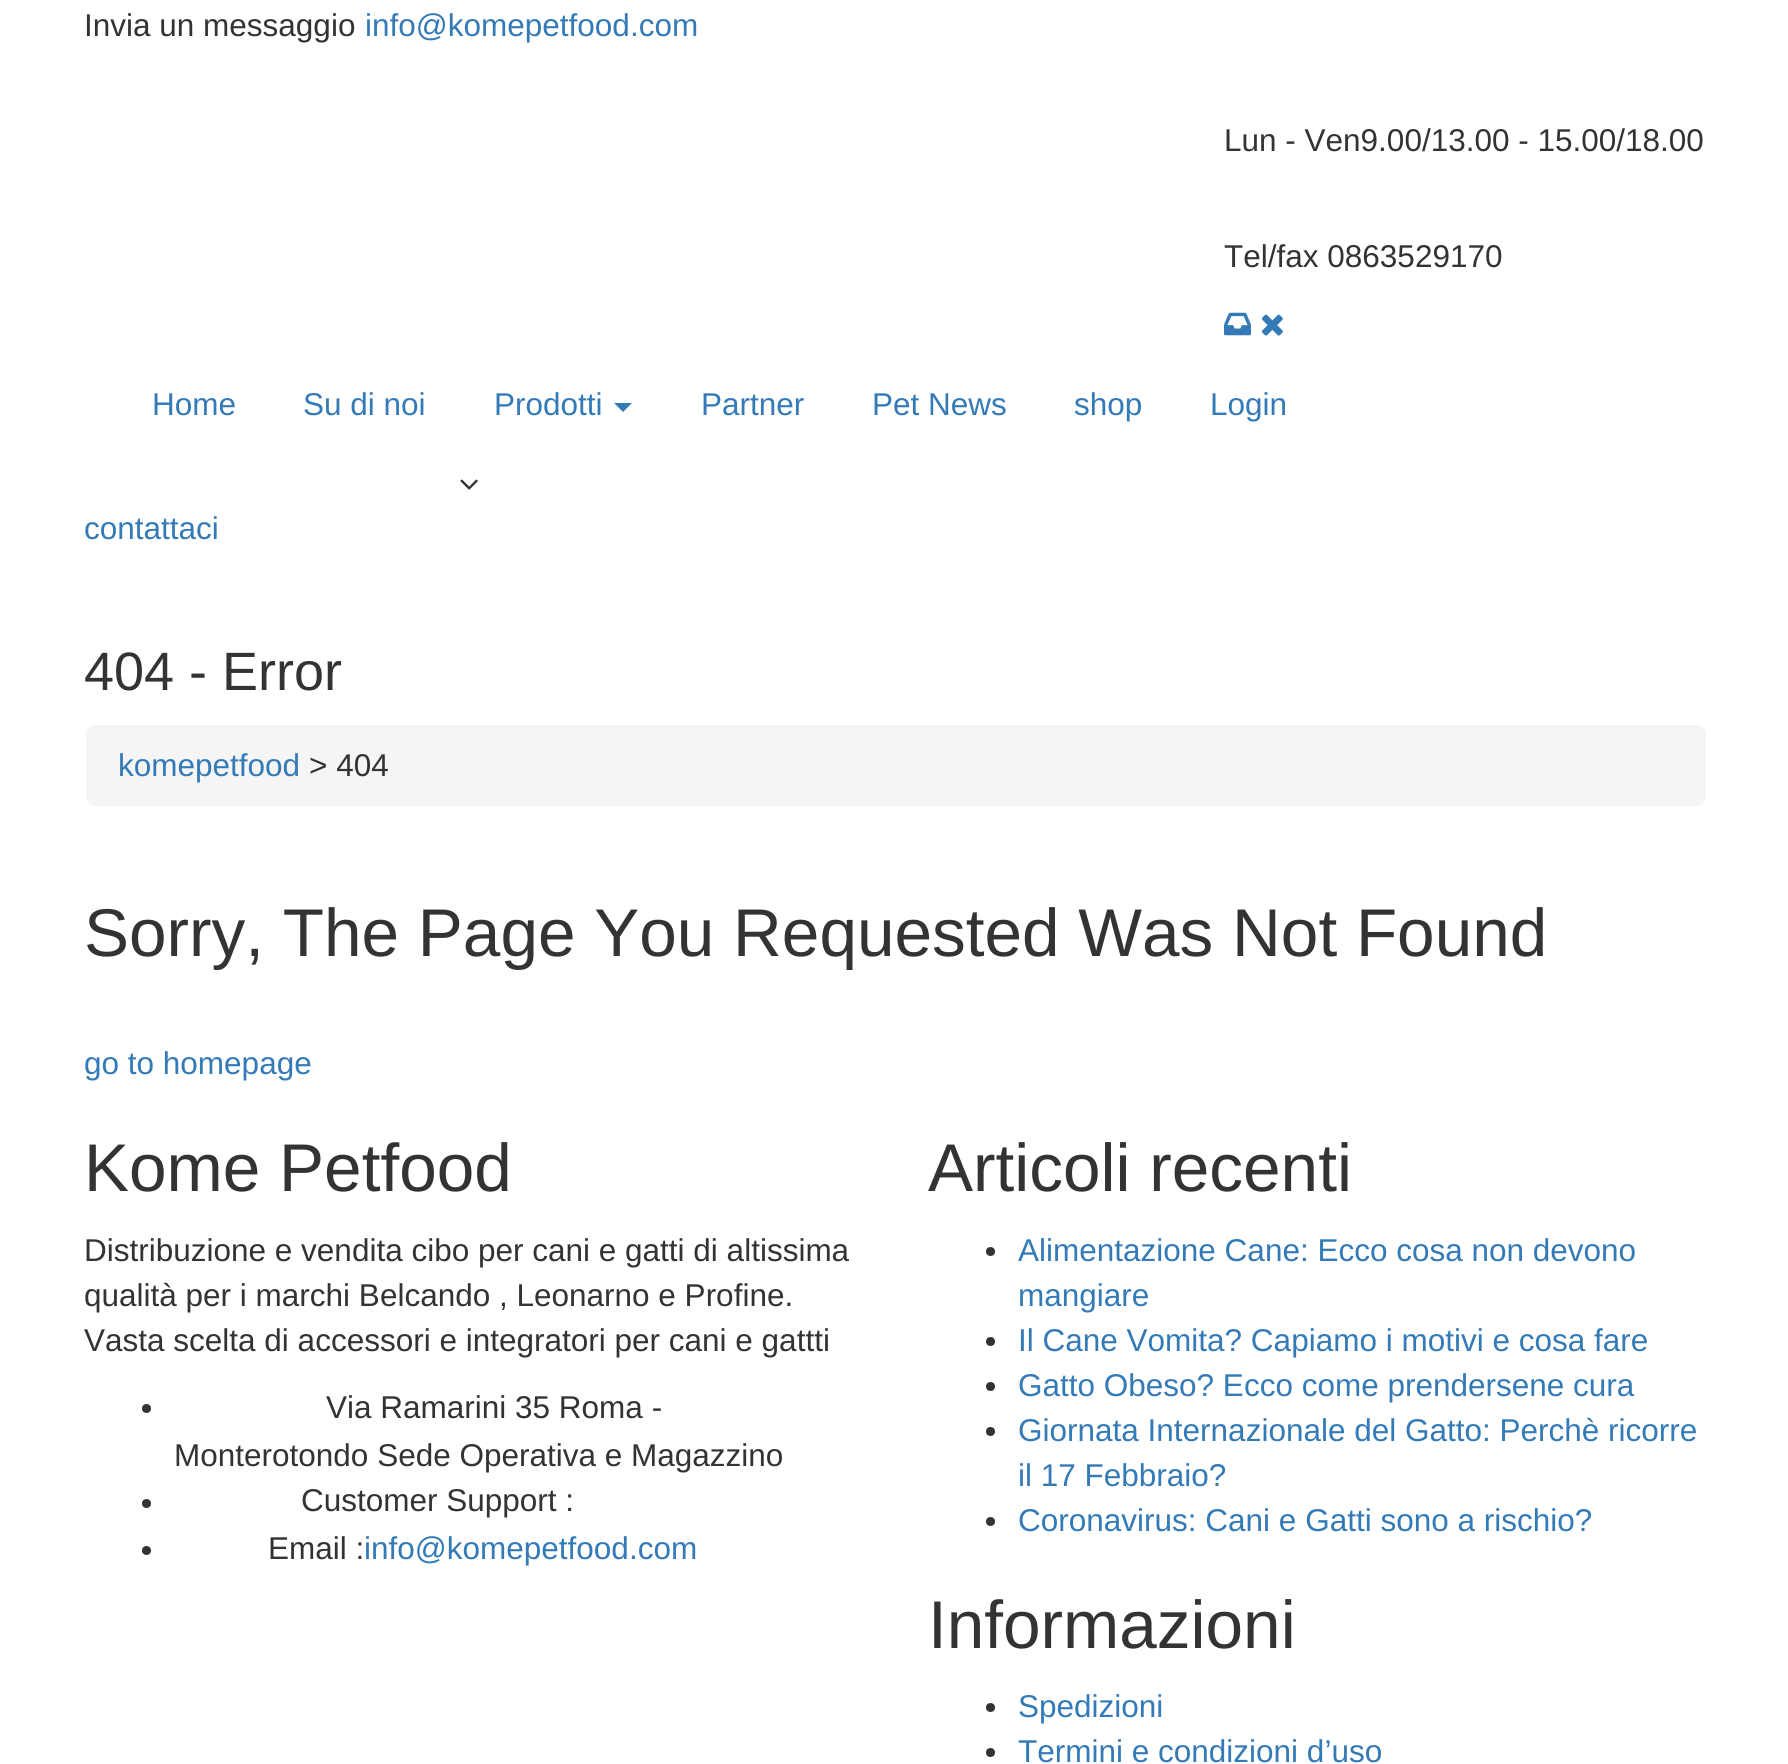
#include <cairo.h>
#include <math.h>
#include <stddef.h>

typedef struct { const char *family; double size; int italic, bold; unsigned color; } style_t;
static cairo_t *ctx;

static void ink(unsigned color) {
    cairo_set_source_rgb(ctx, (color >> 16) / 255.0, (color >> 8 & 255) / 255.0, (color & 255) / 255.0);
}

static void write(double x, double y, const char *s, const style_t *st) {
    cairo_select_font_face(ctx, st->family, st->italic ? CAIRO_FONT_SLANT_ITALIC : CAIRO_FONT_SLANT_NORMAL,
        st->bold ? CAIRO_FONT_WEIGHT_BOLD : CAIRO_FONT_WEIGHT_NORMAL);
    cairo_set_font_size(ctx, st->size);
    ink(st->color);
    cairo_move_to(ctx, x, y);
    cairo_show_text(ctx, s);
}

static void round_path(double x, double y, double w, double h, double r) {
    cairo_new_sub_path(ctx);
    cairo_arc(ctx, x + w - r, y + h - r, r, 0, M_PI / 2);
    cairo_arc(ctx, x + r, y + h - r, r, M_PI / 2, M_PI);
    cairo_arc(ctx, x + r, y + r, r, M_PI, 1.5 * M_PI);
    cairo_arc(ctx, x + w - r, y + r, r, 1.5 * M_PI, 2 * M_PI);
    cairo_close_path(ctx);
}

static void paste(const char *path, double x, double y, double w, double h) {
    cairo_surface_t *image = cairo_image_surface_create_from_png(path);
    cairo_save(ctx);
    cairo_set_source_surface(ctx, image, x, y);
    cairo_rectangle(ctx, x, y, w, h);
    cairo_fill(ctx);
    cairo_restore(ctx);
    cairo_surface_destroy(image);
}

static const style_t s1 = {"Liberation Sans", 31.5, 0, 0, 0x333333};
static const style_t s2 = {"Liberation Sans", 31.5, 0, 0, 0x337ab7};
static const style_t s3 = {"Liberation Sans", 54, 0, 0, 0x333333};
static const style_t s4 = {"Liberation Sans", 67.5, 0, 0, 0x333333};

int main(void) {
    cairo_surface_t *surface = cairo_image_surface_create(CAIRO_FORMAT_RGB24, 1788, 1764);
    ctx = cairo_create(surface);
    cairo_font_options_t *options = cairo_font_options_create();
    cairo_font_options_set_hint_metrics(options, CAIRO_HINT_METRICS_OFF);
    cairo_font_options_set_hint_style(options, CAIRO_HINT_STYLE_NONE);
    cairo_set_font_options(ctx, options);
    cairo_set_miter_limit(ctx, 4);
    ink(0xffffff);
    cairo_paint(ctx);
    write(84, 36, "Invia un messaggio", &s1);
    write(365, 36, "info@komepetfood.com", &s2);
    write(1224, 151, "Lun - Ven9.00/13.00 - 15.00/18.00", &s1);
    write(1224, 267, "Tel/fax 0863529170", &s1);
    paste("pic1.png", 1224, 312, 27, 24);
    paste("pic2.png", 1261, 314, 22, 22);
    write(152, 415, "Home", &s2);
    write(303, 415, "Su di noi", &s2);
    write(494, 415, "Prodotti", &s2);
    cairo_new_path(ctx);
    cairo_move_to(ctx, 614, 403);
    cairo_line_to(ctx, 632, 403);
    cairo_line_to(ctx, 623, 412);
    cairo_close_path(ctx);
    cairo_fill(ctx);
    paste("pic3.png", 460, 479, 18, 11);
    write(701, 415, "Partner", &s2);
    write(872, 415, "Pet News", &s2);
    write(1074, 415, "shop", &s2);
    write(1210, 415, "Login", &s2);
    write(84, 539, "contattaci", &s2);
    write(84, 690, "404 - Error", &s3);
    ink(0xf5f5f5);
    round_path(86, 725, 1620, 81, 9);
    cairo_fill(ctx);
    write(118, 776, "komepetfood", &s2);
    write(309, 776, "> 404", &s1);
    write(84, 956, "Sorry, The Page You Requested Was Not Found", &s4);
    write(84, 1074, "go to homepage", &s2);
    write(84, 1191, "Kome Petfood", &s4);
    write(84, 1261, "Distribuzione e vendita cibo per cani e gatti di altissima", &s1);
    write(84, 1306, "qualità per i marchi Belcando , Leonarno e Profine.", &s1);
    write(84, 1351, "Vasta scelta di accessori e integratori per cani e gattti", &s1);
    cairo_new_path(ctx);
    cairo_arc(ctx, 146.5, 1408.5, 4.5, 0, 2 * M_PI);
    cairo_fill(ctx);
    write(326, 1418, "Via Ramarini 35 Roma -", &s1);
    write(174, 1466, "Monterotondo Sede Operativa e Magazzino", &s1);
    cairo_new_path(ctx);
    cairo_arc(ctx, 146.5, 1503.5, 4.5, 0, 2 * M_PI);
    cairo_fill(ctx);
    write(301, 1511, "Customer Support :", &s1);
    cairo_new_path(ctx);
    cairo_arc(ctx, 146.5, 1550.5, 4.5, 0, 2 * M_PI);
    cairo_fill(ctx);
    write(268, 1559, "Email :", &s1);
    write(364, 1559, "info@komepetfood.com", &s2);
    write(928, 1191, "Articoli recenti", &s4);
    cairo_new_path(ctx);
    cairo_arc(ctx, 990.5, 1251.5, 4.5, 0, 2 * M_PI);
    cairo_fill(ctx);
    write(1018, 1261, "Alimentazione Cane: Ecco cosa non devono", &s2);
    write(1018, 1306, "mangiare", &s2);
    ink(0x333333);
    cairo_new_path(ctx);
    cairo_arc(ctx, 990.5, 1341.5, 4.5, 0, 2 * M_PI);
    cairo_fill(ctx);
    write(1018, 1351, "Il Cane Vomita? Capiamo i motivi e cosa fare", &s2);
    ink(0x333333);
    cairo_new_path(ctx);
    cairo_arc(ctx, 990.5, 1386.5, 4.5, 0, 2 * M_PI);
    cairo_fill(ctx);
    write(1018, 1396, "Gatto Obeso? Ecco come prendersene cura", &s2);
    ink(0x333333);
    cairo_new_path(ctx);
    cairo_arc(ctx, 990.5, 1431.5, 4.5, 0, 2 * M_PI);
    cairo_fill(ctx);
    write(1018, 1441, "Giornata Internazionale del Gatto: Perchè ricorre", &s2);
    write(1018, 1486, "il 17 Febbraio?", &s2);
    ink(0x333333);
    cairo_new_path(ctx);
    cairo_arc(ctx, 990.5, 1521.5, 4.5, 0, 2 * M_PI);
    cairo_fill(ctx);
    write(1018, 1531, "Coronavirus: Cani e Gatti sono a rischio?", &s2);
    write(928, 1648, "Informazioni", &s4);
    cairo_new_path(ctx);
    cairo_arc(ctx, 990.5, 1707.5, 4.5, 0, 2 * M_PI);
    cairo_fill(ctx);
    write(1018, 1717, "Spedizioni", &s2);
    ink(0x333333);
    cairo_new_path(ctx);
    cairo_arc(ctx, 990.5, 1752.5, 4.5, 0, 2 * M_PI);
    cairo_fill(ctx);
    write(1018, 1762, "Termini e condizioni d’uso", &s2);
    cairo_surface_write_to_png(surface, "screenshot.png");
    cairo_font_options_destroy(options);
    cairo_destroy(ctx);
    cairo_surface_destroy(surface);
    return 0;
}
